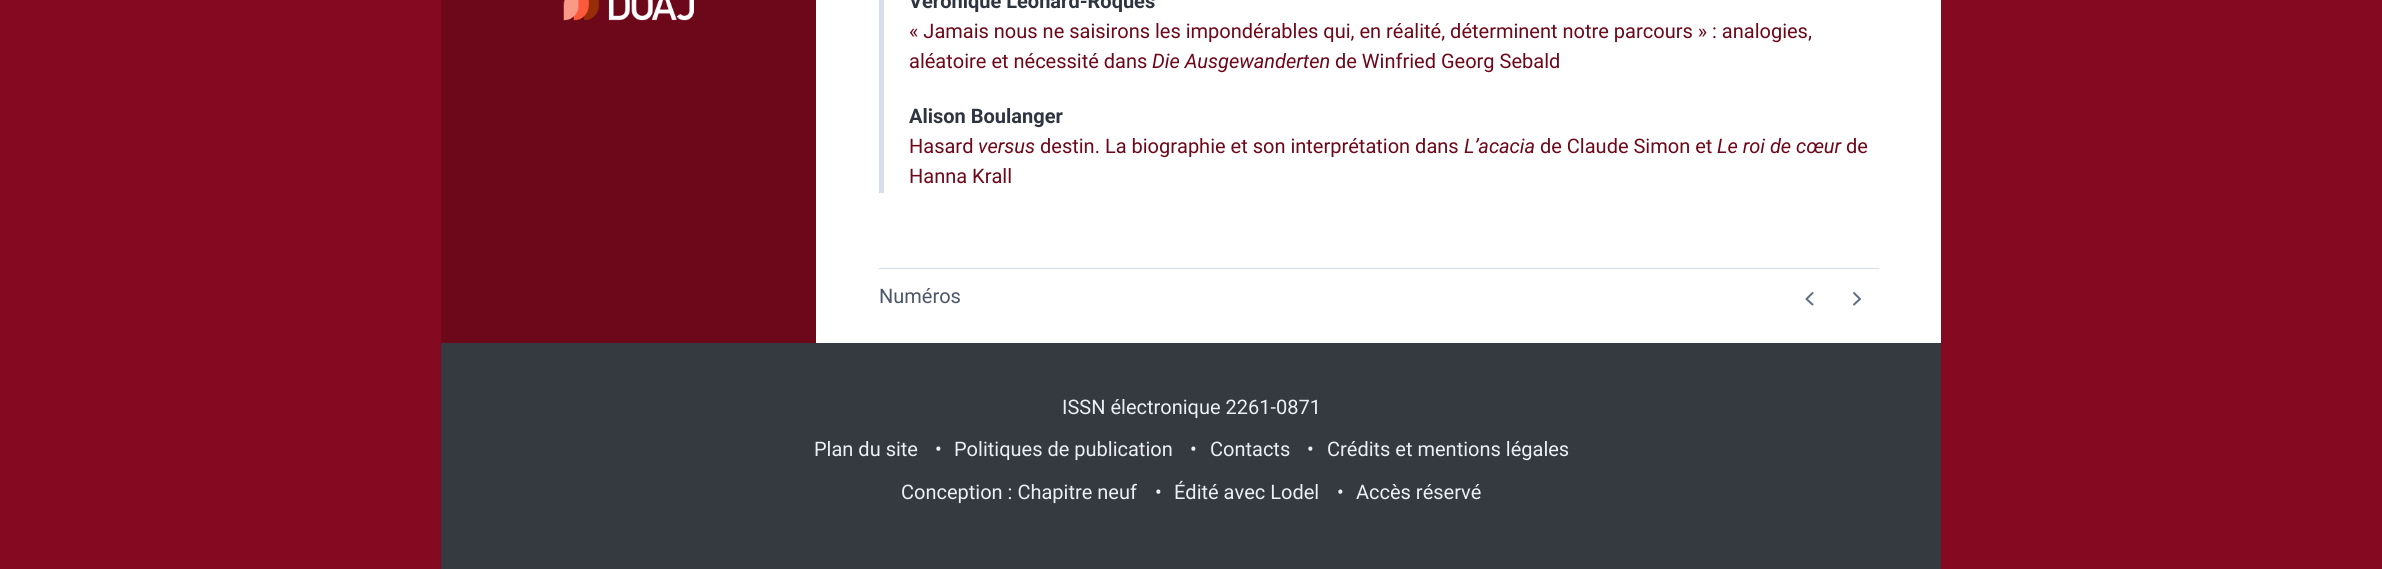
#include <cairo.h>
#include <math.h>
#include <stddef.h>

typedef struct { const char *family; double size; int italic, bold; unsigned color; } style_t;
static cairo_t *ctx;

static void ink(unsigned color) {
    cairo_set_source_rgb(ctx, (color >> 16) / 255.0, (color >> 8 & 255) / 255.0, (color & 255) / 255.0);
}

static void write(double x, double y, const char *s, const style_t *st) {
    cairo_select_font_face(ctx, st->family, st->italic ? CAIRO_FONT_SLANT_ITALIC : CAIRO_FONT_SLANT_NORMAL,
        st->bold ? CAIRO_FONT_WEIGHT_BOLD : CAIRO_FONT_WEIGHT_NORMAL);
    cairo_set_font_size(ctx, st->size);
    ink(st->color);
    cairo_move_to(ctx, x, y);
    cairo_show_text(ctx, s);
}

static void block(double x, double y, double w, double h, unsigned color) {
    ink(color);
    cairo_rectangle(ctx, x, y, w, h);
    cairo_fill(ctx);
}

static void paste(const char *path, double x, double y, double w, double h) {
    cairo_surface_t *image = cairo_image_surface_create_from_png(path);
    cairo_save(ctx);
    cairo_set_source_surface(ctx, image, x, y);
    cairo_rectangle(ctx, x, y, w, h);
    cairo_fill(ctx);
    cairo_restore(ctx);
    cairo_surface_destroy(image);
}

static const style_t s1 = {"Roboto", 20, 0, 1, 0x2e3440};
static const style_t s2 = {"Roboto", 20, 0, 0, 0x6d071a};
static const style_t s3 = {"Roboto", 20, 1, 0, 0x6d071a};
static const style_t s4 = {"Roboto", 20, 0, 0, 0x4c566a};
static const style_t s5 = {"Roboto", 20, 0, 0, 0xeceff4};

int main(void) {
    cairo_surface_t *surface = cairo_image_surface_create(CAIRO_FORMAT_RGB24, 2382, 569);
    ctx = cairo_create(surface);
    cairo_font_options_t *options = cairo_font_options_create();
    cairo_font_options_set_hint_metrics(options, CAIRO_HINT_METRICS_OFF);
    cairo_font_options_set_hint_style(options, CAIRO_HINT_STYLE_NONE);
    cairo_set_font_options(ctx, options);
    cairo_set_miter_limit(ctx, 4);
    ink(0x850920);
    cairo_paint(ctx);
    block(816, 0, 1125, 343, 0xffffff);
    block(441, 0, 375, 343, 0x6d071a);
    paste("pic1.png", 563, 0, 131, 21);
    block(879, 0, 5, 193, 0xd8dee9);
    write(909, 8, "Véronique Léonard-Roques", &s1);
    write(909, 38, "« Jamais nous ne saisirons les impondérables qui, en réalité, déterminent notre parcours » : analogies,", &s2);
    write(909, 68, "aléatoire et nécessité dans", &s2);
    write(1152, 68, "Die Ausgewanderten", &s3);
    write(1335, 68, "de Winfried Georg Sebald", &s2);
    write(909, 123, "Alison Boulanger", &s1);
    write(909, 153, "Hasard", &s2);
    write(978, 153, "versus", &s3);
    write(1040, 153, "destin. La biographie et son interprétation dans", &s2);
    write(1464, 153, "L’acacia", &s3);
    write(1540, 153, "de Claude Simon et", &s2);
    write(1717, 153, "Le roi de cœur", &s3);
    write(1846, 153, "de", &s2);
    write(909, 183, "Hanna Krall", &s2);
    block(879, 268, 1000, 1, 0xd8dee9);
    write(879, 303, "Numéros", &s4);
    cairo_new_path(ctx);
    cairo_move_to(ctx, 1812.5, 304.5);
    cairo_line_to(ctx, 1806.5, 299);
    cairo_line_to(ctx, 1812.5, 293);
    cairo_move_to(ctx, 1854, 304.5);
    cairo_line_to(ctx, 1860, 299);
    cairo_line_to(ctx, 1854, 293);
    ink(0x5f6e86);
    cairo_set_line_cap(ctx, CAIRO_LINE_CAP_ROUND);
    cairo_set_line_join(ctx, CAIRO_LINE_JOIN_ROUND);
    cairo_stroke(ctx);
    block(441, 343, 1500, 226, 0x343a40);
    write(1062, 414, "ISSN électronique 2261-0871", &s5);
    write(814, 456, "Plan du site", &s5);
    write(935, 456, "•", &s5);
    write(954, 456, "Politiques de publication", &s5);
    write(1190, 456, "•", &s5);
    write(1210, 456, "Contacts", &s5);
    write(1307, 456, "•", &s5);
    write(1327, 456, "Crédits et mentions légales", &s5);
    write(901, 499, "Conception : Chapitre neuf", &s5);
    write(1155, 499, "•", &s5);
    write(1174, 499, "Édité avec Lodel", &s5);
    write(1337, 499, "•", &s5);
    write(1356, 499, "Accès réservé", &s5);
    cairo_surface_write_to_png(surface, "screenshot.png");
    cairo_font_options_destroy(options);
    cairo_destroy(ctx);
    cairo_surface_destroy(surface);
    return 0;
}
